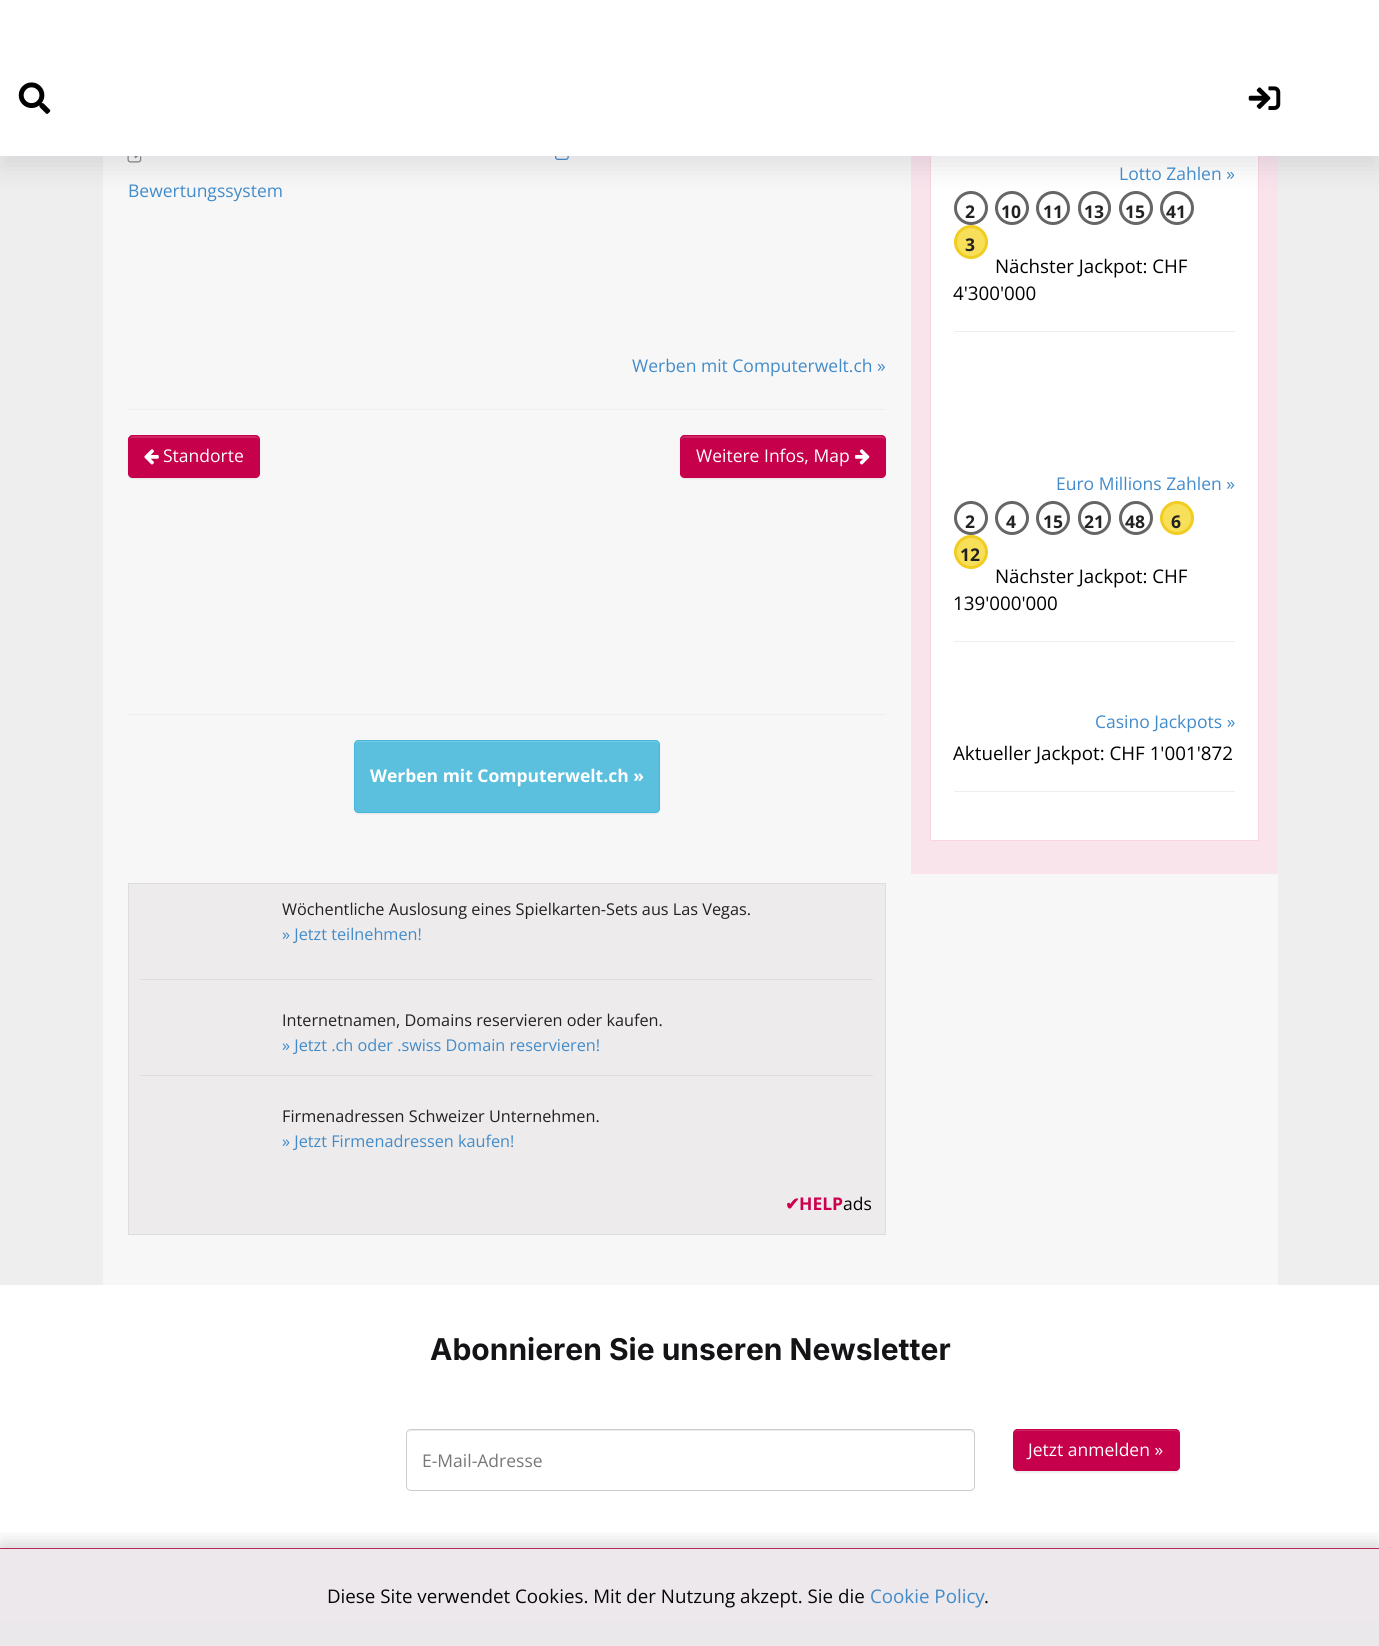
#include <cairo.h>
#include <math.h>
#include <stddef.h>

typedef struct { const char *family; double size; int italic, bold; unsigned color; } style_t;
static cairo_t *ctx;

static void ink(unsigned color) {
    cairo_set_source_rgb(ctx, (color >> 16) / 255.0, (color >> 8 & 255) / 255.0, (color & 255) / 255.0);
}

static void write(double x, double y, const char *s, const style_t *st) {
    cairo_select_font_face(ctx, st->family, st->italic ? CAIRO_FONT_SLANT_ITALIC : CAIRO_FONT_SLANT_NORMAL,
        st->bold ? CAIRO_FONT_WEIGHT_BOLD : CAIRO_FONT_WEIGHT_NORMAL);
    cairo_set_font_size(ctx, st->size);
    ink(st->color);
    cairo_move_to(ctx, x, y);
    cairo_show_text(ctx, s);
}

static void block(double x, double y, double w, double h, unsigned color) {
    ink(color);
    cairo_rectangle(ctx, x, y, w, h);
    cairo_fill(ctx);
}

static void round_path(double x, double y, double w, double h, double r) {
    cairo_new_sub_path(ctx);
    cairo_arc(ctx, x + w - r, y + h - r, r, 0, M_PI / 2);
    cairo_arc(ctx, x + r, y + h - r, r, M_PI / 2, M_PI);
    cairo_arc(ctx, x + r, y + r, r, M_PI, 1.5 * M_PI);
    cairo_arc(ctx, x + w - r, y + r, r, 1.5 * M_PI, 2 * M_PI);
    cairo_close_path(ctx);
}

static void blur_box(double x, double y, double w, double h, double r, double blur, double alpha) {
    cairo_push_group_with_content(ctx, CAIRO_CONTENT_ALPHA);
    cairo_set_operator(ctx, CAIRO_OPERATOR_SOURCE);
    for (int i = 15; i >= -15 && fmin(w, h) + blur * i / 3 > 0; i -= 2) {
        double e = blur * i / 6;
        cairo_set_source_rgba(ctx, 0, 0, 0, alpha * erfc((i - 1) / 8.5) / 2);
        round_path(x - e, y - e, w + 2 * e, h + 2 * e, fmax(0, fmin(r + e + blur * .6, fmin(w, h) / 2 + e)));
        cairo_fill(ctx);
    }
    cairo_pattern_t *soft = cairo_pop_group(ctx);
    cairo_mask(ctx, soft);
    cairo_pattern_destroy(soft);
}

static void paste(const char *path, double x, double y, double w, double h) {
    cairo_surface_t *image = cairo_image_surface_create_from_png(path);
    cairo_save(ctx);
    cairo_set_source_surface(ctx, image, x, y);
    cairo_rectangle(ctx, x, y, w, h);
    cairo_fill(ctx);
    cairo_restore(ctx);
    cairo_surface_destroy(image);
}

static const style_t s1 = {"Open Sans", 17.5, 0, 0, 0x428bca};
static const style_t s2 = {"Open Sans", 17.5, 0, 0, 0xffffff};
static const style_t s3 = {"Open Sans", 17.5, 0, 1, 0xffffff};
static const style_t s4 = {"Open Sans", 16.25, 0, 0, 0x212121};
static const style_t s5 = {"Open Sans", 16.25, 0, 0, 0x428bca};
static const style_t s6 = {"DejaVu Sans", 17.5, 0, 1, 0xcc004e};
static const style_t s7 = {"Open Sans", 17.5, 0, 1, 0xcc004e};
static const style_t s8 = {"Open Sans", 17.5, 0, 0, 0x000000};
static const style_t s9 = {"Open Sans", 17.5, 0, 1, 0x212121};
static const style_t s10 = {"Open Sans", 18.75, 0, 0, 0x000000};
static const style_t s11 = {"Inter", 30, 0, 1, 0x141417};
static const style_t s12 = {"Open Sans", 17.5, 0, 0, 0x777777};
static const style_t s13 = {"Open Sans", 18.75, 0, 0, 0x070707};
static const style_t s14 = {"Open Sans", 18.75, 0, 0, 0x428bca};
static const style_t s15 = {"Open Sans", 18.75, 0, 0, 0x060103};

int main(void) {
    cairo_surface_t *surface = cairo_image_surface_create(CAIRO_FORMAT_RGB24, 1379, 1646);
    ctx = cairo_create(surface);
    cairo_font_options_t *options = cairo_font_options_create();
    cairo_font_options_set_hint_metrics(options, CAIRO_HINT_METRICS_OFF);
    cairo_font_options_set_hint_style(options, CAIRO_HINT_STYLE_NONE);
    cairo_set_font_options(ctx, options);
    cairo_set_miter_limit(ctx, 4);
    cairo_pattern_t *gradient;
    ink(0xffffff);
    cairo_paint(ctx);
    block(0, 156, 1379, 1129, 0xeeeeee);
    block(103, 156, 1175, 1129, 0xf7f7f7);
    paste("pic3.png", 555, 156, 14, 4);
    paste("pic4.png", 127, 156, 15, 7);
    block(911, 156, 367, 718, 0xfae4ec);
    block(931, 156, 327, 684, 0xffffff);
    block(1258, 156, 1, 685, 0xf7d5e1);
    block(930, 840, 329, 1, 0xf7d5e1);
    block(930, 156, 1, 685, 0xf7d5e1);
    cairo_arc(ctx, 971, 208, 15.5, 0, 2 * M_PI);
    ink(0x666666);
    cairo_set_line_width(ctx, 3);
    cairo_stroke(ctx);
    cairo_arc(ctx, 1012, 208, 15.5, 0, 2 * M_PI);
    cairo_stroke(ctx);
    cairo_arc(ctx, 1053, 208, 15.5, 0, 2 * M_PI);
    cairo_stroke(ctx);
    round_path(1079.5, 192.5, 30, 31, 15);
    cairo_stroke(ctx);
    cairo_arc(ctx, 1136, 208, 15.5, 0, 2 * M_PI);
    cairo_stroke(ctx);
    cairo_arc(ctx, 1177, 208, 15.5, 0, 2 * M_PI);
    cairo_stroke(ctx);
    ink(0x1b182f);
    blur_box(0, 13, 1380, 156, 0, 12.5, 0.1);
    block(0, 0, 1379, 156, 0xffffff);
    paste("pic1.png", 18, 82, 33, 32);
    paste("pic2.png", 1248, 86, 33, 24);
    write(128, 197, "Bewertungssystem", &s1);
    write(632, 372, "Werben mit Computerwelt.ch »", &s1);
    block(128, 409, 758, 1, 0xeeeeee);
    ink(0x000000);
    blur_box(128, 436, 132, 43, 5, 0.5, 0.07);
    ink(0xc6004a);
    round_path(128, 435, 132, 43, 5);
    cairo_fill(ctx);
    ink(0xcf2665);
    cairo_new_path(ctx);
    cairo_move_to(ctx, 132, 438);
    cairo_line_to(ctx, 255, 438);
    cairo_curve_to(ctx, 257, 438, 259, 439, 259, 441);
    cairo_line_to(ctx, 259, 440);
    cairo_curve_to(ctx, 259, 438, 257, 436, 255, 436);
    cairo_line_to(ctx, 133, 436);
    cairo_curve_to(ctx, 131, 436, 129, 438, 129, 440);
    cairo_line_to(ctx, 129, 441);
    cairo_curve_to(ctx, 129, 439, 130, 438, 132, 438);
    cairo_close_path(ctx);
    cairo_fill(ctx);
    round_path(128.5, 435.5, 131, 42, 4.5);
    ink(0xc6004a);
    cairo_set_line_width(ctx, 1);
    cairo_stroke(ctx);
    paste("pic5.png", 144, 449, 15, 16);
    write(163, 462, "Standorte", &s2);
    ink(0x000000);
    blur_box(680, 436, 206, 43, 5, 0.5, 0.07);
    ink(0xc6004a);
    round_path(680, 435, 206, 43, 5);
    cairo_fill(ctx);
    ink(0xcf2665);
    cairo_new_path(ctx);
    cairo_move_to(ctx, 685, 438);
    cairo_line_to(ctx, 881, 438);
    cairo_curve_to(ctx, 883, 438, 885, 439, 885, 441);
    cairo_line_to(ctx, 885, 440);
    cairo_curve_to(ctx, 885, 438, 883, 436, 881, 436);
    cairo_line_to(ctx, 685, 436);
    cairo_curve_to(ctx, 683, 436, 681, 438, 681, 440);
    cairo_line_to(ctx, 681, 441);
    cairo_curve_to(ctx, 681, 439, 683, 438, 685, 438);
    cairo_close_path(ctx);
    cairo_fill(ctx);
    round_path(680.5, 435.5, 205, 42, 4.5);
    ink(0xc6004a);
    cairo_stroke(ctx);
    write(696, 462, "Weitere Infos, Map", &s2);
    paste("pic6.png", 855, 449, 15, 16);
    block(128, 714, 758, 1, 0xeeeeee);
    ink(0x000000);
    blur_box(354, 741, 306, 73, 5, 0.5, 0.07);
    ink(0x5bc0de);
    round_path(354, 740, 306, 73, 5);
    cairo_fill(ctx);
    ink(0x74c9e3);
    cairo_new_path(ctx);
    cairo_move_to(ctx, 359, 742);
    cairo_line_to(ctx, 655, 742);
    cairo_curve_to(ctx, 657, 742, 659, 744, 659, 746);
    cairo_curve_to(ctx, 659, 743, 658, 741, 655, 741);
    cairo_line_to(ctx, 359, 741);
    cairo_line_to(ctx, 356, 742);
    cairo_curve_to(ctx, 355, 743, 355, 745, 355, 746);
    cairo_curve_to(ctx, 355, 744, 357, 742, 359, 742);
    cairo_close_path(ctx);
    cairo_fill(ctx);
    round_path(354.5, 740.5, 305, 72, 4.5);
    ink(0x46b8da);
    cairo_stroke(ctx);
    write(370, 782, "Werben mit Computerwelt.ch »", &s3);
    ink(0xedebeb);
    cairo_rectangle(ctx, 128.5, 883.5, 757, 351);
    cairo_fill_preserve(ctx);
    ink(0xdddddd);
    cairo_stroke(ctx);
    write(282, 915, "Wöchentliche Auslosung eines Spielkarten-Sets aus Las Vegas.", &s4);
    write(282, 940, "» Jetzt teilnehmen!", &s5);
    block(141, 979, 732, 1, 0xdddddd);
    write(282, 1026, "Internetnamen, Domains reservieren oder kaufen.", &s4);
    write(282, 1051, "» Jetzt .ch oder .swiss Domain reservieren!", &s5);
    block(141, 1075, 732, 1, 0xdddddd);
    write(282, 1122, "Firmenadressen Schweizer Unternehmen.", &s4);
    write(282, 1147, "» Jetzt Firmenadressen kaufen!", &s5);
    write(785, 1210, "✔", &s6);
    write(799, 1210, "HELP", &s7);
    write(843, 1210, "ads", &s8);
    write(1119, 180, "Lotto Zahlen »", &s1);
    write(965, 218, "2", &s9);
    write(1001, 218, "10", &s9);
    write(1043, 218, "11", &s9);
    write(1084, 218, "13", &s9);
    write(1125, 218, "15", &s9);
    write(1166, 218, "41", &s9);
    ink(0xf7df5a);
    cairo_new_path(ctx);
    cairo_arc(ctx, 971, 242, 15.5, 0, 2 * M_PI);
    cairo_fill_preserve(ctx);
    ink(0xf1cc21);
    cairo_set_line_width(ctx, 3);
    cairo_stroke(ctx);
    write(965, 251, "3", &s9);
    write(995, 273, "Nächster Jackpot: CHF", &s10);
    write(953, 300, "4'300'000", &s10);
    block(954, 331, 281, 1, 0xeeeeee);
    write(1056, 490, "Euro Millions Zahlen »", &s1);
    cairo_new_path(ctx);
    cairo_arc(ctx, 971, 518, 15.5, 0, 2 * M_PI);
    ink(0x666666);
    cairo_stroke(ctx);
    write(965, 528, "2", &s9);
    cairo_new_path(ctx);
    cairo_arc(ctx, 1012, 518, 15.5, 0, 2 * M_PI);
    ink(0x666666);
    cairo_stroke(ctx);
    write(1006, 528, "4", &s9);
    cairo_new_path(ctx);
    cairo_arc(ctx, 1053, 518, 15.5, 0, 2 * M_PI);
    ink(0x666666);
    cairo_stroke(ctx);
    write(1043, 528, "15", &s9);
    round_path(1079.5, 502.5, 30, 31, 15);
    ink(0x666666);
    cairo_stroke(ctx);
    write(1084, 528, "21", &s9);
    cairo_new_path(ctx);
    cairo_arc(ctx, 1136, 518, 15.5, 0, 2 * M_PI);
    ink(0x666666);
    cairo_stroke(ctx);
    write(1125, 528, "48", &s9);
    ink(0xf7df5a);
    cairo_new_path(ctx);
    cairo_arc(ctx, 1177, 518, 15.5, 0, 2 * M_PI);
    cairo_fill_preserve(ctx);
    ink(0xf1cc21);
    cairo_stroke(ctx);
    write(1171, 528, "6", &s9);
    ink(0xf7df5a);
    cairo_new_path(ctx);
    cairo_arc(ctx, 971, 552, 15.5, 0, 2 * M_PI);
    cairo_fill_preserve(ctx);
    ink(0xf1cc21);
    cairo_stroke(ctx);
    write(960, 561, "12", &s9);
    write(995, 583, "Nächster Jackpot: CHF", &s10);
    write(953, 610, "139'000'000", &s10);
    block(954, 641, 281, 1, 0xeeeeee);
    write(1095, 728, "Casino Jackpots »", &s1);
    write(953, 760, "Aktueller Jackpot: CHF 1'001'872", &s10);
    block(954, 791, 281, 1, 0xeeeeee);
    write(430, 1360, "Abonnieren Sie unseren Newsletter", &s11);
    ink(0xececec);
    cairo_new_path(ctx);
    cairo_move_to(ctx, 411, 1431);
    cairo_line_to(ctx, 970, 1431);
    cairo_curve_to(ctx, 972, 1431, 974, 1433, 974, 1435);
    cairo_curve_to(ctx, 974, 1432, 973, 1430, 970, 1430);
    cairo_line_to(ctx, 412, 1430);
    cairo_curve_to(ctx, 409, 1430, 408, 1432, 408, 1435);
    cairo_curve_to(ctx, 408, 1433, 409, 1431, 411, 1431);
    cairo_close_path(ctx);
    cairo_fill(ctx);
    round_path(406.5, 1429.5, 568, 61, 4.5);
    ink(0xcccccc);
    cairo_set_line_width(ctx, 1);
    cairo_stroke(ctx);
    write(422, 1467, "E-Mail-Adresse", &s12);
    ink(0x000000);
    blur_box(1013, 1430, 167, 43, 5, 0.5, 0.07);
    ink(0xc6004a);
    round_path(1013, 1429, 167, 42, 5);
    cairo_fill(ctx);
    ink(0xcf2665);
    cairo_new_path(ctx);
    cairo_move_to(ctx, 1018, 1431);
    cairo_line_to(ctx, 1175, 1431);
    cairo_curve_to(ctx, 1177, 1431, 1179, 1433, 1179, 1435);
    cairo_line_to(ctx, 1179, 1434);
    cairo_curve_to(ctx, 1179, 1432, 1177, 1430, 1175, 1430);
    cairo_line_to(ctx, 1018, 1430);
    cairo_curve_to(ctx, 1016, 1430, 1014, 1432, 1014, 1434);
    cairo_line_to(ctx, 1014, 1435);
    cairo_curve_to(ctx, 1014, 1433, 1015, 1431, 1018, 1431);
    cairo_close_path(ctx);
    cairo_fill(ctx);
    round_path(1013.5, 1429.5, 166, 41, 4.5);
    ink(0xc6004a);
    cairo_stroke(ctx);
    write(1028, 1456, "Jetzt anmelden »", &s2);
    gradient = cairo_pattern_create_linear(690, 1548, 690, 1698);
    cairo_pattern_add_color_stop_rgba(gradient, 0, 0.812, 0.184, 0.4, 1);
    cairo_pattern_add_color_stop_rgba(gradient, 1, 0.655, 0.145, 0.322, 1);
    cairo_set_source(ctx, gradient);
    cairo_pattern_destroy(gradient);
    cairo_rectangle(ctx, 0, 1548, 1379, 1);
    cairo_fill(ctx);
    gradient = cairo_pattern_create_linear(690, 1548, 690, 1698);
    cairo_pattern_add_color_stop_rgba(gradient, 0, 0.925, 0.91, 0.922, 1);
    cairo_pattern_add_color_stop_rgba(gradient, 1, 0.922, 0.91, 0.918, 1);
    cairo_set_source(ctx, gradient);
    cairo_pattern_destroy(gradient);
    cairo_rectangle(ctx, 0, 1549, 1379, 97);
    cairo_fill(ctx);
    cairo_save(ctx);
    cairo_rectangle(ctx, 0, 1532, 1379, 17);
    cairo_clip(ctx);
    ink(0x000000);
    blur_box(1, 1544, 1378, 95, 0, 9.5, 0.18);
    cairo_restore(ctx);
    write(327, 1603, "Diese Site verwendet Cookies. Mit der Nutzung akzept. Sie die", &s13);
    write(870, 1603, "Cookie Policy", &s14);
    write(984, 1603, ".", &s15);
    cairo_surface_write_to_png(surface, "screenshot.png");
    cairo_font_options_destroy(options);
    cairo_destroy(ctx);
    cairo_surface_destroy(surface);
    return 0;
}
